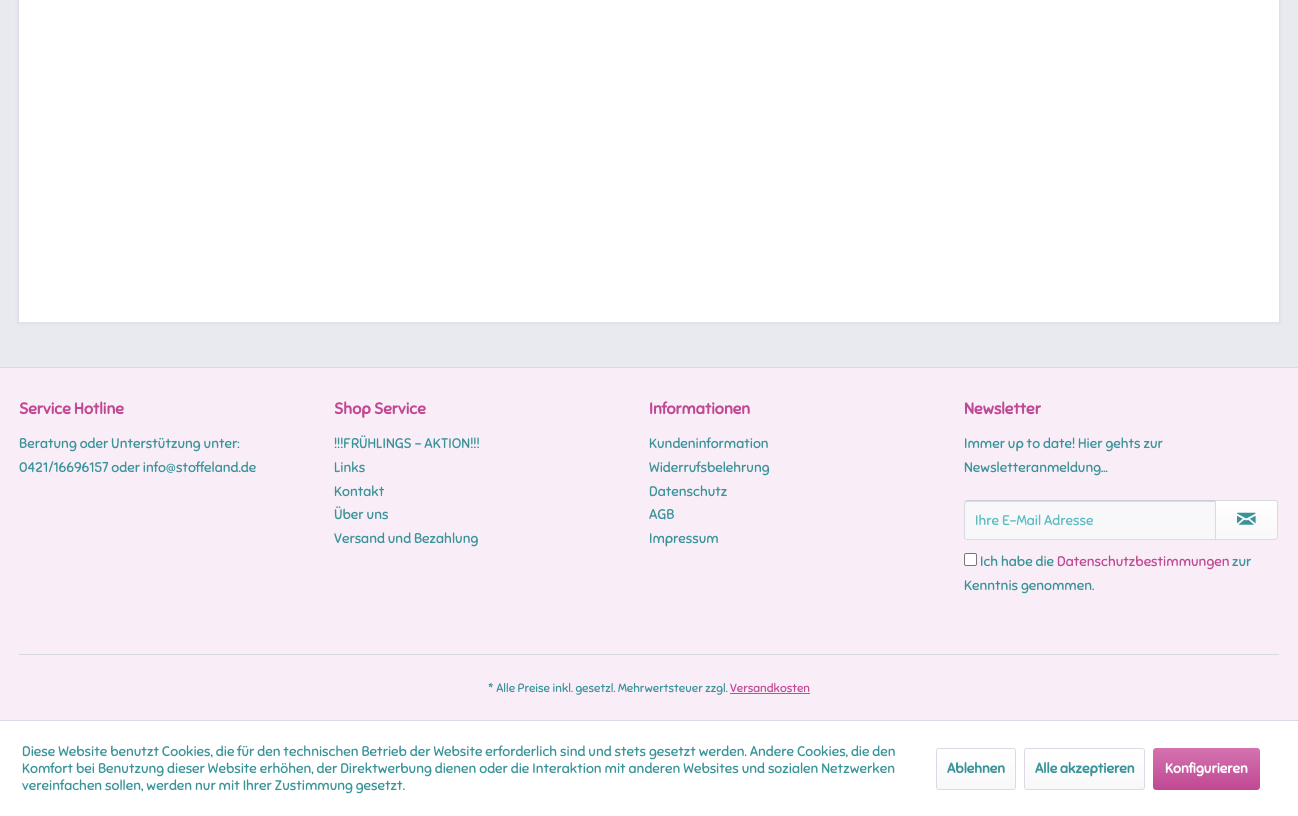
#include <cairo.h>
#include <math.h>
#include <stddef.h>

typedef struct { const char *family; double size; int italic, bold; unsigned color; } style_t;
static cairo_t *ctx;

static void ink(unsigned color) {
    cairo_set_source_rgb(ctx, (color >> 16) / 255.0, (color >> 8 & 255) / 255.0, (color & 255) / 255.0);
}

static void write(double x, double y, const char *s, const style_t *st) {
    cairo_select_font_face(ctx, st->family, st->italic ? CAIRO_FONT_SLANT_ITALIC : CAIRO_FONT_SLANT_NORMAL,
        st->bold ? CAIRO_FONT_WEIGHT_BOLD : CAIRO_FONT_WEIGHT_NORMAL);
    cairo_set_font_size(ctx, st->size);
    ink(st->color);
    cairo_move_to(ctx, x, y);
    cairo_show_text(ctx, s);
}

static void block(double x, double y, double w, double h, unsigned color) {
    ink(color);
    cairo_rectangle(ctx, x, y, w, h);
    cairo_fill(ctx);
}

static void round_path(double x, double y, double w, double h, double r) {
    cairo_new_sub_path(ctx);
    cairo_arc(ctx, x + w - r, y + h - r, r, 0, M_PI / 2);
    cairo_arc(ctx, x + r, y + h - r, r, M_PI / 2, M_PI);
    cairo_arc(ctx, x + r, y + r, r, M_PI, 1.5 * M_PI);
    cairo_arc(ctx, x + w - r, y + r, r, 1.5 * M_PI, 2 * M_PI);
    cairo_close_path(ctx);
}

static void blur_box(double x, double y, double w, double h, double r, double blur, double alpha) {
    cairo_push_group_with_content(ctx, CAIRO_CONTENT_ALPHA);
    cairo_set_operator(ctx, CAIRO_OPERATOR_SOURCE);
    for (int i = 15; i >= -15 && fmin(w, h) + blur * i / 3 > 0; i -= 2) {
        double e = blur * i / 6;
        cairo_set_source_rgba(ctx, 0, 0, 0, alpha * erfc((i - 1) / 8.5) / 2);
        round_path(x - e, y - e, w + 2 * e, h + 2 * e, fmax(0, fmin(r + e + blur * .6, fmin(w, h) / 2 + e)));
        cairo_fill(ctx);
    }
    cairo_pattern_t *soft = cairo_pop_group(ctx);
    cairo_mask(ctx, soft);
    cairo_pattern_destroy(soft);
}

static void paste(const char *path, double x, double y, double w, double h) {
    cairo_surface_t *image = cairo_image_surface_create_from_png(path);
    cairo_save(ctx);
    cairo_set_source_surface(ctx, image, x, y);
    cairo_rectangle(ctx, x, y, w, h);
    cairo_fill(ctx);
    cairo_restore(ctx);
    cairo_surface_destroy(image);
}

static const style_t s1 = {"Sniglet", 16, 0, 1, 0xc04993};
static const style_t s2 = {"Sniglet", 14, 0, 0, 0x399398};
static const style_t s3 = {"Sniglet", 14, 0, 0, 0x5cbcc2};
static const style_t s4 = {"Sniglet", 14, 0, 0, 0xc04993};
static const style_t s5 = {"Sniglet", 12, 0, 0, 0x399398};
static const style_t s6 = {"Sniglet", 12, 0, 0, 0xc04993};
static const style_t s7 = {"Sniglet", 14, 0, 1, 0x399398};
static const style_t s8 = {"Sniglet", 14, 0, 1, 0xffffff};

int main(void) {
    cairo_surface_t *surface = cairo_image_surface_create(CAIRO_FORMAT_RGB24, 1298, 816);
    ctx = cairo_create(surface);
    cairo_font_options_t *options = cairo_font_options_create();
    cairo_font_options_set_hint_metrics(options, CAIRO_HINT_METRICS_OFF);
    cairo_font_options_set_hint_style(options, CAIRO_HINT_STYLE_NONE);
    cairo_set_font_options(ctx, options);
    cairo_set_miter_limit(ctx, 4);
    cairo_pattern_t *gradient;
    ink(0xe9e9f0);
    cairo_paint(ctx);
    ink(0xdadae5);
    blur_box(18, -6, 1262, 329, 0, 2, 1);
    block(19, 0, 1260, 322, 0xffffff);
    block(0, 368, 1298, 352, 0xf9edf8);
    block(0, 367, 1298, 1, 0xdadae5);
    block(19, 654, 1260, 1, 0xdadae5);
    write(19, 414, "Service Hotline", &s1);
    write(19, 448, "Beratung oder Unterstützung unter:", &s2);
    write(19, 472, "0421/16696157 oder info@stoffeland.de", &s2);
    write(334, 414, "Shop Service", &s1);
    write(334, 448, "!!!FRÜHLINGS - AKTION!!!", &s2);
    write(334, 472, "Links", &s2);
    write(334, 496, "Kontakt", &s2);
    write(334, 519, "Über uns", &s2);
    write(334, 543, "Versand und Bezahlung", &s2);
    write(649, 414, "Informationen", &s1);
    write(649, 448, "Kundeninformation", &s2);
    write(649, 472, "Widerrufsbelehrung", &s2);
    write(649, 496, "Datenschutz", &s2);
    write(649, 519, "AGB", &s2);
    write(649, 543, "Impressum", &s2);
    write(964, 414, "Newsletter", &s1);
    write(964, 448, "Immer up to date! Hier gehts zur", &s2);
    write(964, 472, "Newsletteranmeldung...", &s2);
    ink(0xf8f8fa);
    cairo_new_path(ctx);
    cairo_move_to(ctx, 967, 501);
    cairo_line_to(ctx, 1215, 501);
    cairo_line_to(ctx, 1215, 539);
    cairo_line_to(ctx, 967, 539);
    cairo_curve_to(ctx, 966, 539, 965, 538, 965, 537);
    cairo_line_to(ctx, 965, 503);
    cairo_curve_to(ctx, 965, 502, 966, 501, 967, 501);
    cairo_close_path(ctx);
    cairo_fill(ctx);
    ink(0xdadae5);
    cairo_new_path(ctx);
    cairo_move_to(ctx, 967, 502);
    cairo_line_to(ctx, 1215, 502);
    cairo_line_to(ctx, 1215, 501);
    cairo_line_to(ctx, 967, 501);
    cairo_curve_to(ctx, 965, 501, 965, 503, 965, 504);
    cairo_curve_to(ctx, 965, 503, 966, 502, 967, 502);
    cairo_close_path(ctx);
    cairo_fill(ctx);
    ink(0xcbcbdb);
    cairo_new_path(ctx);
    cairo_move_to(ctx, 967, 500);
    cairo_line_to(ctx, 965, 501);
    cairo_line_to(ctx, 966, 502);
    cairo_line_to(ctx, 966, 501);
    cairo_line_to(ctx, 1215, 501);
    cairo_line_to(ctx, 1216, 500);
    cairo_close_path(ctx);
    cairo_fill(ctx);
    ink(0xdadae5);
    cairo_new_path(ctx);
    cairo_move_to(ctx, 1216, 540);
    cairo_line_to(ctx, 1215, 539);
    cairo_line_to(ctx, 966, 539);
    cairo_line_to(ctx, 966, 538);
    cairo_line_to(ctx, 965, 539);
    cairo_line_to(ctx, 967, 540);
    cairo_close_path(ctx);
    cairo_fill(ctx);
    cairo_new_path(ctx);
    cairo_move_to(ctx, 964, 503);
    cairo_line_to(ctx, 964, 537);
    cairo_curve_to(ctx, 964, 538, 964, 539, 965, 539);
    cairo_line_to(ctx, 965.5, 538.5);
    cairo_line_to(ctx, 965, 537);
    cairo_line_to(ctx, 965, 503);
    cairo_line_to(ctx, 965.5, 501.5);
    cairo_line_to(ctx, 965, 501);
    cairo_curve_to(ctx, 964, 501, 964, 502, 964, 503);
    cairo_close_path(ctx);
    cairo_fill(ctx);
    write(975, 525, "Ihre E-Mail Adresse", &s3);
    gradient = cairo_pattern_create_linear(1247, 501, 1247, 539);
    cairo_pattern_add_color_stop_rgba(gradient, 0, 1, 1, 1, 1);
    cairo_pattern_add_color_stop_rgba(gradient, 1, 0.973, 0.973, 0.98, 1);
    cairo_set_source(ctx, gradient);
    cairo_pattern_destroy(gradient);
    cairo_new_path(ctx);
    cairo_move_to(ctx, 1216, 501);
    cairo_line_to(ctx, 1275, 501);
    cairo_curve_to(ctx, 1276, 501, 1277, 502, 1277, 503);
    cairo_line_to(ctx, 1277, 537);
    cairo_curve_to(ctx, 1277, 538, 1276, 539, 1275, 539);
    cairo_line_to(ctx, 1216, 539);
    cairo_close_path(ctx);
    cairo_fill(ctx);
    cairo_new_path(ctx);
    cairo_move_to(ctx, 1215.5, 500.5);
    cairo_line_to(ctx, 1275, 500.5);
    cairo_curve_to(ctx, 1276.5, 500.5, 1277.5, 501.5, 1277.5, 503);
    cairo_line_to(ctx, 1277.5, 537);
    cairo_curve_to(ctx, 1277.5, 538.5, 1276.5, 539.5, 1275, 539.5);
    cairo_line_to(ctx, 1215.5, 539.5);
    cairo_close_path(ctx);
    ink(0xdadae5);
    cairo_set_line_width(ctx, 1);
    cairo_stroke(ctx);
    paste("pic1.png", 1237, 512, 19, 13);
    ink(0xffffff);
    round_path(964.5, 553.5, 12, 12, 1.5);
    cairo_fill_preserve(ctx);
    ink(0x767676);
    cairo_stroke(ctx);
    write(980, 566, "Ich habe die", &s2);
    write(1057, 566, "Datenschutzbestimmungen", &s4);
    write(1232, 566, "zur", &s2);
    write(964, 590, "Kenntnis genommen.", &s2);
    write(488, 692, "* Alle Preise inkl. gesetzl. Mehrwertsteuer zzgl.", &s5);
    write(730, 692, "Versandkosten", &s6);
    block(730, 693, 80, 1, 0x399398);
    block(0, 721, 1298, 95, 0xffffff);
    block(0, 720, 1298, 1, 0xdadae5);
    write(22, 756, "Diese Website benutzt Cookies, die für den technischen Betrieb der Website erforderlich sind und stets gesetzt werden. Andere Cookies, die den", &s2);
    write(22, 773, "Komfort bei Benutzung dieser Website erhöhen, der Direktwerbung dienen oder die Interaktion mit anderen Websites und sozialen Netzwerken", &s2);
    write(22, 790, "vereinfachen sollen, werden nur mit Ihrer Zustimmung gesetzt.", &s2);
    gradient = cairo_pattern_create_linear(976, 749, 976, 789);
    cairo_pattern_add_color_stop_rgba(gradient, 0, 1, 1, 1, 1);
    cairo_pattern_add_color_stop_rgba(gradient, 1, 0.973, 0.973, 0.98, 1);
    cairo_set_source(ctx, gradient);
    cairo_pattern_destroy(gradient);
    round_path(937, 749, 78, 40, 2);
    cairo_fill(ctx);
    round_path(936.5, 748.5, 79, 41, 2.5);
    ink(0xdadae5);
    cairo_stroke(ctx);
    write(947, 773, "Ablehnen", &s7);
    gradient = cairo_pattern_create_linear(1085, 749, 1085, 789);
    cairo_pattern_add_color_stop_rgba(gradient, 0, 1, 1, 1, 1);
    cairo_pattern_add_color_stop_rgba(gradient, 1, 0.973, 0.973, 0.98, 1);
    cairo_set_source(ctx, gradient);
    cairo_pattern_destroy(gradient);
    round_path(1025, 749, 119, 40, 2);
    cairo_fill(ctx);
    round_path(1024.5, 748.5, 120, 41, 2.5);
    ink(0xdadae5);
    cairo_stroke(ctx);
    write(1035, 773, "Alle akzeptieren", &s7);
    gradient = cairo_pattern_create_linear(1207, 748, 1207, 790);
    cairo_pattern_add_color_stop_rgba(gradient, 0, 0.831, 0.447, 0.686, 1);
    cairo_pattern_add_color_stop_rgba(gradient, 1, 0.753, 0.286, 0.576, 1);
    cairo_set_source(ctx, gradient);
    cairo_pattern_destroy(gradient);
    round_path(1153, 748, 107, 42, 3);
    cairo_fill(ctx);
    write(1165, 773, "Konfigurieren", &s8);
    cairo_surface_write_to_png(surface, "screenshot.png");
    cairo_font_options_destroy(options);
    cairo_destroy(ctx);
    cairo_surface_destroy(surface);
    return 0;
}
